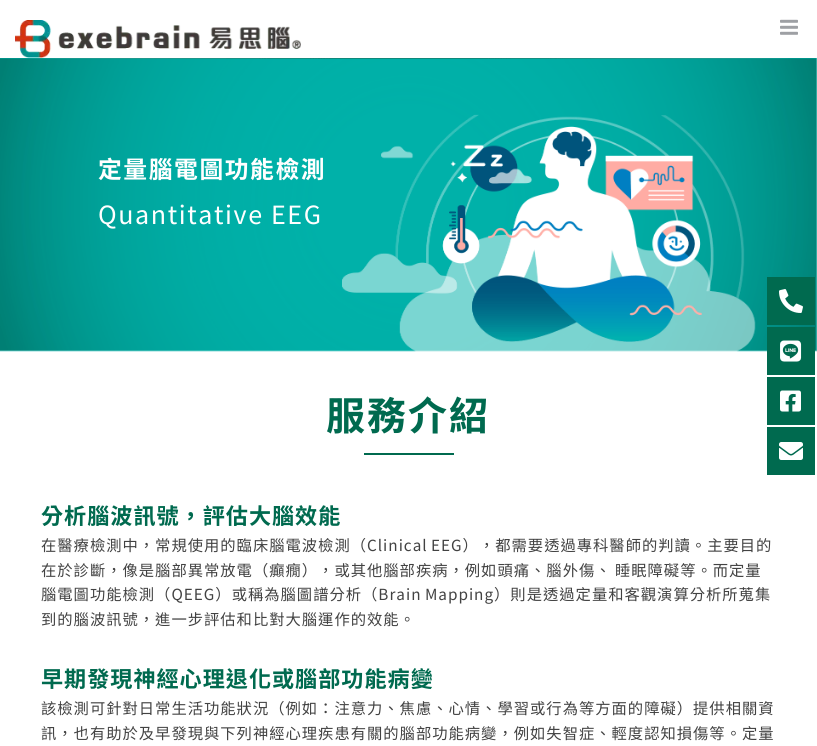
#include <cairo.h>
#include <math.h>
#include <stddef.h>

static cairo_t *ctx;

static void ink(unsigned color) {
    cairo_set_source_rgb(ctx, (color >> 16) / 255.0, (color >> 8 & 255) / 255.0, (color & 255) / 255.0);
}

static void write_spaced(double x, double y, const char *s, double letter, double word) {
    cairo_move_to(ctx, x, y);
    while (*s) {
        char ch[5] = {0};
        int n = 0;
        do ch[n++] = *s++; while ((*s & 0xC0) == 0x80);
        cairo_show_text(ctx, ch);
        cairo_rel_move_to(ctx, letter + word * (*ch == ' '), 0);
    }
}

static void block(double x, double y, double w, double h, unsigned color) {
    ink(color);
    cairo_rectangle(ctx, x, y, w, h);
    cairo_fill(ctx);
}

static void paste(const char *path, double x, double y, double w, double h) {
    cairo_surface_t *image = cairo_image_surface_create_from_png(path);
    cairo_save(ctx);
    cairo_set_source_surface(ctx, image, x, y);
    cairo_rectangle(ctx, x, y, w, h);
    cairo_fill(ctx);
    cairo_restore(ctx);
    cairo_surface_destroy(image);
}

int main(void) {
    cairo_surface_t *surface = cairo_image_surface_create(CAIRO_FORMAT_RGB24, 817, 746);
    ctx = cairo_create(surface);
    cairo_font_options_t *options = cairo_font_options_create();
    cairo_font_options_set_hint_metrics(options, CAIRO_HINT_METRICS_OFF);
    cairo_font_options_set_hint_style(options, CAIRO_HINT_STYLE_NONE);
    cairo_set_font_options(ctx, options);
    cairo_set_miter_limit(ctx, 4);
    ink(0xffffff);
    cairo_paint(ctx);
    paste("pic1.png", 15, 20, 286, 38);
    paste("pic2.png", 780, 19, 18, 16);
    paste("pic3.png", 0, 58, 817, 294);
    cairo_select_font_face(ctx, "Noto Sans TC", CAIRO_FONT_SLANT_NORMAL, CAIRO_FONT_WEIGHT_BOLD);
    cairo_set_font_size(ctx, 23.75);
    ink(0xffffff);
    write_spaced(98, 178, "定量腦電圖功能檢測", 1.6, 0);
    cairo_select_font_face(ctx, "Source Sans Pro", CAIRO_FONT_SLANT_NORMAL, CAIRO_FONT_WEIGHT_NORMAL);
    cairo_set_font_size(ctx, 28);
    write_spaced(98, 224, "Quantitative EEG", 1.6, 0);
    cairo_select_font_face(ctx, "Noto Sans TC", CAIRO_FONT_SLANT_NORMAL, CAIRO_FONT_WEIGHT_BOLD);
    cairo_set_font_size(ctx, 39);
    ink(0x006a4f);
    write_spaced(326, 430, "服務介紹", 2, 0);
    block(364, 453, 90, 2, 0x006a4f);
    cairo_set_font_size(ctx, 22.1);
    write_spaced(41, 524, "分析腦波訊號，評估大腦效能", 1, 0);
    cairo_select_font_face(ctx, "Noto Sans TC", CAIRO_FONT_SLANT_NORMAL, CAIRO_FONT_WEIGHT_NORMAL);
    cairo_set_font_size(ctx, 15.3);
    ink(0x424242);
    write_spaced(41, 551, "在醫療檢測中，常規使用的臨床腦電波檢測（Clinical EEG），都需要透過專科醫師的判讀。主要目的", 1, -1);
    write_spaced(41, 576, "在於診斷，像是腦部異常放電（癲癇），或其他腦部疾病，例如頭痛、腦外傷、 睡眠障礙等。而定量", 1, -1);
    write_spaced(41, 600, "腦電圖功能檢測（QEEG）或稱為腦圖譜分析（Brain Mapping）則是透過定量和客觀演算分析所蒐集", 1, -1);
    write_spaced(41, 625, "到的腦波訊號，進一步評估和比對大腦運作的效能。", 1, 0);
    cairo_select_font_face(ctx, "Noto Sans TC", CAIRO_FONT_SLANT_NORMAL, CAIRO_FONT_WEIGHT_BOLD);
    cairo_set_font_size(ctx, 22.1);
    ink(0x006a4f);
    write_spaced(41, 687, "早期發現神經心理退化或腦部功能病變", 1, 0);
    cairo_select_font_face(ctx, "Noto Sans TC", CAIRO_FONT_SLANT_NORMAL, CAIRO_FONT_WEIGHT_NORMAL);
    cairo_set_font_size(ctx, 15.3);
    ink(0x424242);
    write_spaced(41, 714, "該檢測可針對日常生活功能狀況（例如：注意力、焦慮、心情、學習或行為等方面的障礙）提供相關資", 1, 0);
    write_spaced(41, 739, "訊，也有助於及早發現與下列神經心理疾患有關的腦部功能病變，例如失智症、輕度認知損傷等。定量", 1, 0);
    block(767, 277, 48, 48, 0x006a4f);
    paste("pic4.png", 779, 289, 24, 24);
    block(767, 327, 48, 48, 0x006a4f);
    paste("pic5.png", 780, 340, 22, 22);
    block(767, 377, 48, 48, 0x006a4f);
    paste("pic6.png", 780, 390, 21, 22);
    block(767, 427, 48, 48, 0x006a4f);
    paste("pic7.png", 779, 442, 24, 18);
    cairo_surface_write_to_png(surface, "screenshot.png");
    cairo_font_options_destroy(options);
    cairo_destroy(ctx);
    cairo_surface_destroy(surface);
    return 0;
}
